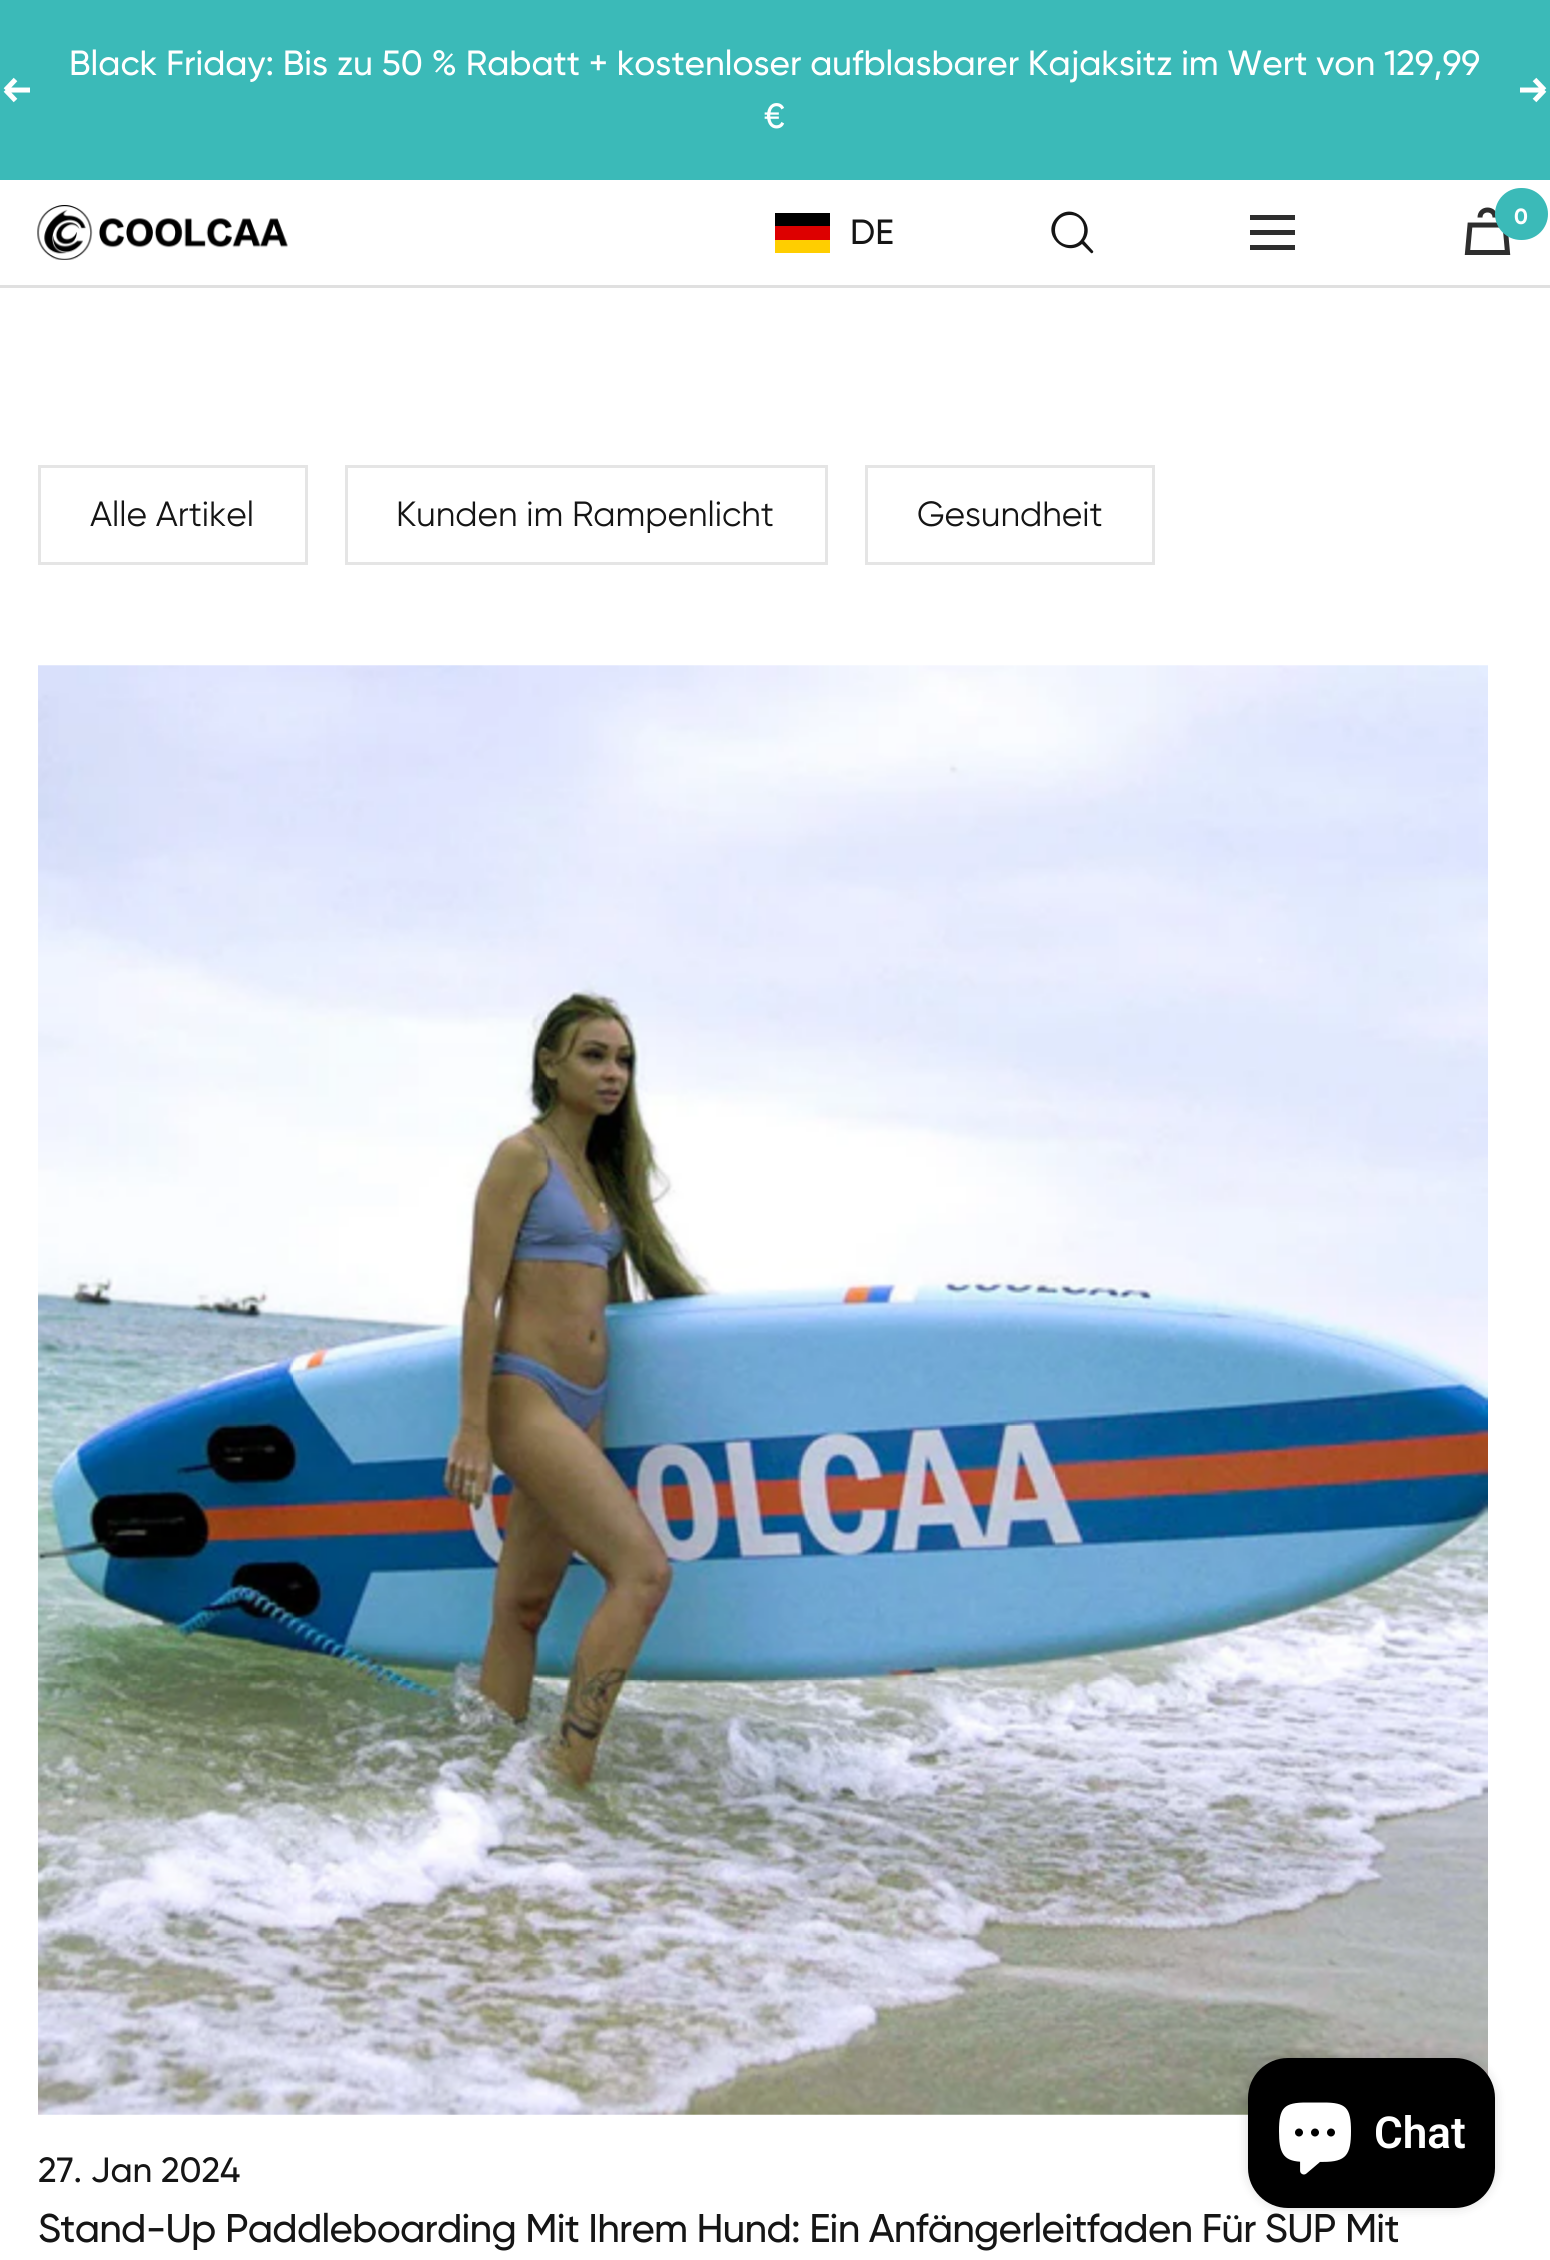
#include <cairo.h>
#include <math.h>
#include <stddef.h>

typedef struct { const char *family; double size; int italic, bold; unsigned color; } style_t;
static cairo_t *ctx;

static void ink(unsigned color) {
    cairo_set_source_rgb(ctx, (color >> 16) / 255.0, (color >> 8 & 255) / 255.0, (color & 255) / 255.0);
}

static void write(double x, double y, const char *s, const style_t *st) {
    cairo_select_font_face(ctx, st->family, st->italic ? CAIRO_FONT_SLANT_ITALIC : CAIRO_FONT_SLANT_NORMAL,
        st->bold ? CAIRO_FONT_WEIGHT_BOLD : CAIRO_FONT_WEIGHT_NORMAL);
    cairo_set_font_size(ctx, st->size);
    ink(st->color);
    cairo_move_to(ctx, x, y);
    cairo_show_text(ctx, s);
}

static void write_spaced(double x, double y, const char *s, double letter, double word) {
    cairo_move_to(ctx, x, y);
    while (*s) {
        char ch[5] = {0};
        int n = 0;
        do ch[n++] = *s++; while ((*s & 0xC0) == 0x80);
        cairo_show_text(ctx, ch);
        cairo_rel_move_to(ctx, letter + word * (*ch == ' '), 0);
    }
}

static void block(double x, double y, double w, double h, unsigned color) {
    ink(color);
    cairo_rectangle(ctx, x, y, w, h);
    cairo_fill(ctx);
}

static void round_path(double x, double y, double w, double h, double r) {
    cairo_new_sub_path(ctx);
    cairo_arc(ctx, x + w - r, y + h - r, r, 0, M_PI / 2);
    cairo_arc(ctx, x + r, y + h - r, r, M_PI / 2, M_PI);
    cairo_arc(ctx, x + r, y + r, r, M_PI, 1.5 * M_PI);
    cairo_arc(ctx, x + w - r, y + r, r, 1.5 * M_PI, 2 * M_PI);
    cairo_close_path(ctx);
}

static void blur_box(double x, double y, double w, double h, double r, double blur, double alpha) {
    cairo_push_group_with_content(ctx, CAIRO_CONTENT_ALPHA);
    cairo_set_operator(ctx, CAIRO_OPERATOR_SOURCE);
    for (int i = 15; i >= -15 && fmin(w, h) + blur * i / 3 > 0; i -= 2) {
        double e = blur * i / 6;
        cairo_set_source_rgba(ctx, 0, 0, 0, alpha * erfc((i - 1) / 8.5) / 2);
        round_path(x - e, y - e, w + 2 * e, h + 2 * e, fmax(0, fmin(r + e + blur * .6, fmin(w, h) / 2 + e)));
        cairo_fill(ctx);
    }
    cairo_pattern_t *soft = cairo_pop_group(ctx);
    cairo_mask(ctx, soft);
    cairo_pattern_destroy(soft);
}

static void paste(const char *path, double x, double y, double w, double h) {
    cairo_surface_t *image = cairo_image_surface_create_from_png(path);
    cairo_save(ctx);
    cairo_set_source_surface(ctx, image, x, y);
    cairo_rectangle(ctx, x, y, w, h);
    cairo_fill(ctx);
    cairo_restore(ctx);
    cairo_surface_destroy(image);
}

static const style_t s1 = {"Gilroy Medium", 35, 0, 0, 0xffffff};
static const style_t s2 = {"Gilroy Medium", 35, 0, 0, 0x151515};
static const style_t s3 = {"Gilroy", 22, 0, 1, 0xffffff};
static const style_t s4 = {"Gilroy", 35, 0, 0, 0x151515};
static const style_t s5 = {"Roboto SemiBold", 44, 0, 0, 0xffffff};

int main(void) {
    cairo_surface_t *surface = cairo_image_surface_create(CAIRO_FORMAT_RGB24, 1550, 2260);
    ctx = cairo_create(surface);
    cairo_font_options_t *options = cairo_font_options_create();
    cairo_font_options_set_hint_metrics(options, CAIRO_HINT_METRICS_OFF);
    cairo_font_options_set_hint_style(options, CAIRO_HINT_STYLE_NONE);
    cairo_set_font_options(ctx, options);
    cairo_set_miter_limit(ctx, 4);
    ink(0xffffff);
    cairo_paint(ctx);
    block(0, 0, 1550, 180, 0x3bbab8);
    cairo_new_path(ctx);
    cairo_move_to(ctx, 30, 90);
    cairo_line_to(ctx, 5.5, 90);
    cairo_move_to(ctx, 5.5, 90);
    cairo_line_to(ctx, 15.5, 100.5);
    cairo_move_to(ctx, 5.5, 90);
    cairo_line_to(ctx, 15.5, 79.5);
    ink(0xffffff);
    cairo_set_line_width(ctx, 5);
    cairo_stroke(ctx);
    write(69, 75, "Black Friday: Bis zu 50 % Rabatt + kostenloser aufblasbarer Kajaksitz im Wert von 129,99", &s1);
    write(764, 128, "€", &s1);
    cairo_new_path(ctx);
    cairo_move_to(ctx, 1520, 90);
    cairo_line_to(ctx, 1544.5, 90);
    cairo_move_to(ctx, 1544.5, 90);
    cairo_line_to(ctx, 1534.5, 100.5);
    cairo_move_to(ctx, 1544.5, 90);
    cairo_line_to(ctx, 1534.5, 79.5);
    cairo_stroke(ctx);
    block(0, 285, 1550, 3, 0xe0e0e0);
    paste("pic1.png", 37, 205, 251, 55);
    block(775, 240, 55, 13, 0xffce00);
    block(775, 213, 55, 13, 0x000000);
    block(775, 226, 55, 14, 0xdd0000);
    write(850, 244, "DE", &s2);
    cairo_new_path(ctx);
    cairo_move_to(ctx, 1093, 251);
    cairo_line_to(ctx, 1084, 241);
    cairo_curve_to(ctx, 1097, 224, 1073, 201, 1057, 217);
    cairo_curve_to(ctx, 1040, 234, 1065, 258, 1082, 244);
    cairo_line_to(ctx, 1091, 253);
    cairo_curve_to(ctx, 1092, 254, 1094, 252, 1093, 251);
    cairo_close_path(ctx);
    cairo_move_to(ctx, 1070, 245);
    cairo_curve_to(ctx, 1050, 245, 1050, 215, 1070, 215);
    cairo_curve_to(ctx, 1089, 215, 1089, 245, 1070, 245);
    cairo_close_path(ctx);
    cairo_fill(ctx);
    cairo_new_path(ctx);
    cairo_move_to(ctx, 1250, 217.5);
    cairo_line_to(ctx, 1295, 217.5);
    cairo_move_to(ctx, 1250, 247.5);
    cairo_line_to(ctx, 1295, 247.5);
    cairo_close_path(ctx);
    cairo_move_to(ctx, 1250, 232.5);
    cairo_line_to(ctx, 1295, 232.5);
    cairo_close_path(ctx);
    ink(0x2e2e2e);
    cairo_stroke(ctx);
    cairo_new_path(ctx);
    cairo_move_to(ctx, 1470, 225);
    cairo_line_to(ctx, 1505, 225);
    cairo_line_to(ctx, 1507.5, 252.5);
    cairo_line_to(ctx, 1467.5, 252.5);
    cairo_close_path(ctx);
    cairo_move_to(ctx, 1495, 217.5);
    cairo_curve_to(ctx, 1495, 207.5, 1480, 207.5, 1480, 217.5);
    cairo_stroke(ctx);
    ink(0x3bbab8);
    round_path(1495, 188, 53, 52, 26);
    cairo_fill(ctx);
    write(1514, 224, "0", &s3);
    cairo_rectangle(ctx, 39.5, 466.5, 267, 97);
    ink(0xe5e5e5);
    cairo_set_line_width(ctx, 3);
    cairo_stroke(ctx);
    write(90, 526, "Alle Artikel", &s4);
    cairo_rectangle(ctx, 346.5, 466.5, 480, 97);
    ink(0xe5e5e5);
    cairo_stroke(ctx);
    write(396, 526, "Kunden im Rampenlicht", &s4);
    cairo_rectangle(ctx, 866.5, 466.5, 287, 97);
    ink(0xe5e5e5);
    cairo_stroke(ctx);
    write(917, 526, "Gesundheit", &s4);
    paste("pic2.png", 38, 665, 1450, 1450);
    write(38, 2182, "27. Jan 2024", &s2);
    cairo_set_font_size(ctx, 40);
    write_spaced(38, 2242, "Stand-Up Paddleboarding Mit Ihrem Hund: Ein Anfängerleitfaden Für SUP Mit", -0.75, 0);
    ink(0x000000);
    blur_box(1248, 2058, 247, 150, 40, 6, 0.15);
    ink(0x000000);
    round_path(1248, 2058, 247, 150, 40);
    cairo_fill(ctx);
    paste("pic3.png", 1279, 2102, 72, 73);
    write(1374, 2148, "Chat", &s5);
    cairo_surface_write_to_png(surface, "screenshot.png");
    cairo_font_options_destroy(options);
    cairo_destroy(ctx);
    cairo_surface_destroy(surface);
    return 0;
}
